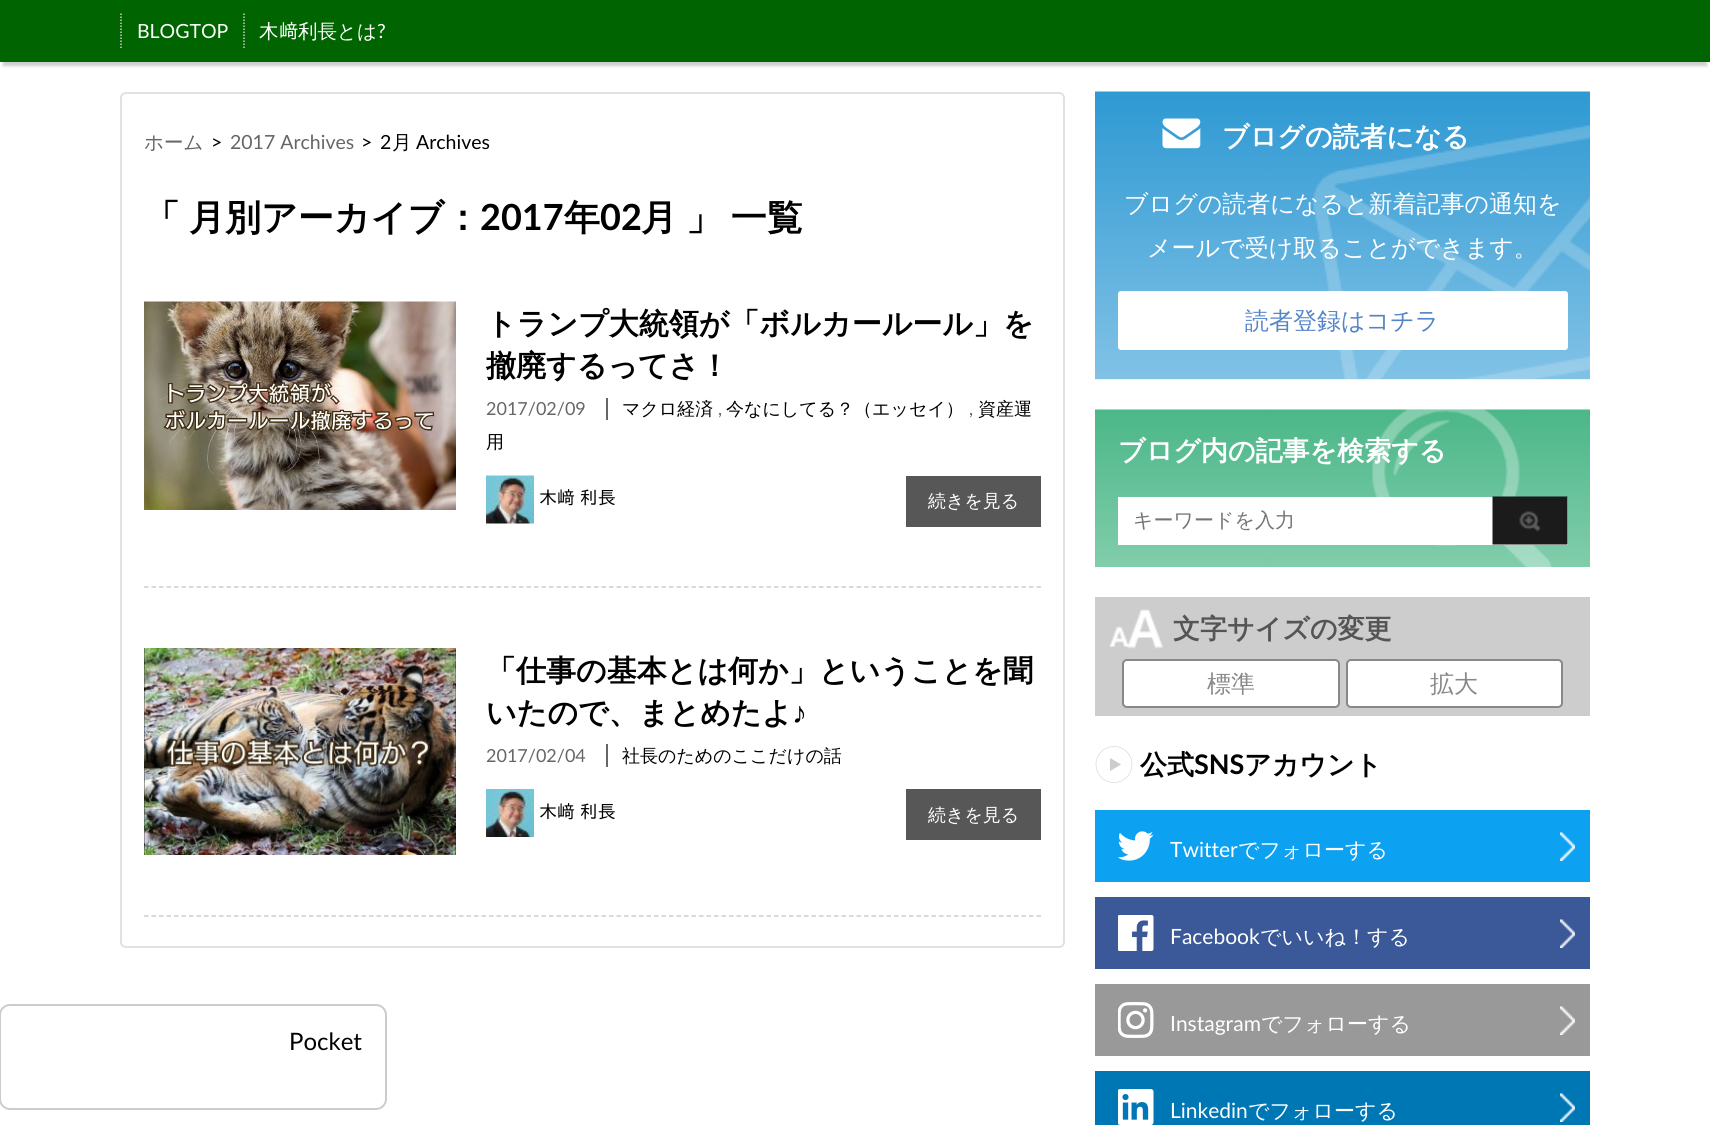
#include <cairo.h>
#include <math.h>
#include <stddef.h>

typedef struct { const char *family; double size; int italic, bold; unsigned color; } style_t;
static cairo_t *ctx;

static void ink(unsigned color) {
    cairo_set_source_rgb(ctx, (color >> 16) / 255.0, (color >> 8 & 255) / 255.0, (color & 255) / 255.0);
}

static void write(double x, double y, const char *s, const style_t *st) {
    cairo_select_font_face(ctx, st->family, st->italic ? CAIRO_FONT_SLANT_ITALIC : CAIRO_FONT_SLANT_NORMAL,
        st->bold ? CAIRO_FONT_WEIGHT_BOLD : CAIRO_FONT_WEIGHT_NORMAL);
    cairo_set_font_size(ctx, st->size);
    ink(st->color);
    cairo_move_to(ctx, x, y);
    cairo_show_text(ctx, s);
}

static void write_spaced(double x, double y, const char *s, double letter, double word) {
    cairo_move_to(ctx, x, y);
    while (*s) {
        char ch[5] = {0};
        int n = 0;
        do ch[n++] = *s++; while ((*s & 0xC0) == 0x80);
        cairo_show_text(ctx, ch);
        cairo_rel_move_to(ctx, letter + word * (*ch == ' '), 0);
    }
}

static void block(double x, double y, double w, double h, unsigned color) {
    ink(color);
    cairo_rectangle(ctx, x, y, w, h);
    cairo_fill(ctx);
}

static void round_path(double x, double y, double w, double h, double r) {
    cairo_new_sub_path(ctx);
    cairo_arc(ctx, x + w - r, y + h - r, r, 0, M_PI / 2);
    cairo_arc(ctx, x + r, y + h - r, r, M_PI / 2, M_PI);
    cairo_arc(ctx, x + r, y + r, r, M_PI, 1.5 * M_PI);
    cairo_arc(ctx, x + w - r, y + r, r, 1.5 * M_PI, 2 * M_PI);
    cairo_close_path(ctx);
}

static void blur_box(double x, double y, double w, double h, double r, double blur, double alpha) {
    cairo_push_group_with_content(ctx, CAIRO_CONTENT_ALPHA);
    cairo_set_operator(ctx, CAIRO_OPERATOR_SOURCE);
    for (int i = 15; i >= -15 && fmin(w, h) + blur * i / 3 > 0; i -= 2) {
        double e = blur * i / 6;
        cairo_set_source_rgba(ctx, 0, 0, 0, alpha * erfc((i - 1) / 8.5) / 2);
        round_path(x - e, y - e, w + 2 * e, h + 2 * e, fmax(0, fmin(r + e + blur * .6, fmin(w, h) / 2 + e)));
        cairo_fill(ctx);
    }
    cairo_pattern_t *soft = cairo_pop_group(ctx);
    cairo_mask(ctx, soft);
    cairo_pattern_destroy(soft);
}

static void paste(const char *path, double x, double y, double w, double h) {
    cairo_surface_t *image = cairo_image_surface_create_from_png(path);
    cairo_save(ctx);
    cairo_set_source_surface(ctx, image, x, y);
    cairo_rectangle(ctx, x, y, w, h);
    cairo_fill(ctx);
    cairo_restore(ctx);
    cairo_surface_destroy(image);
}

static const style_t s1 = {"Lato", 19.5, 0, 0, 0xffffff};
static const style_t s2 = {"WenQuanYi Zen Hei Medium", 19.5, 0, 0, 0xffffff};
static const style_t s3 = {"IPAPGothic", 19.5, 0, 0, 0xffffff};
static const style_t s4 = {"WenQuanYi Zen Hei Medium", 19.5, 0, 0, 0x666666};
static const style_t s5 = {"Lato", 19.5, 0, 0, 0x000000};
static const style_t s6 = {"Lato", 19.5, 0, 0, 0x666666};
static const style_t s7 = {"WenQuanYi Zen Hei Medium", 19.5, 0, 0, 0x000000};
static const style_t s8 = {"WenQuanYi Zen Hei", 36, 0, 1, 0x000000};
static const style_t s9 = {"Lato", 36, 0, 1, 0x000000};
static const style_t s10 = {"WenQuanYi Zen Hei", 30, 0, 1, 0x000000};
static const style_t s11 = {"Lato", 18, 0, 0, 0x666666};
static const style_t s12 = {"WenQuanYi Zen Hei Medium", 18, 0, 0, 0x000000};
static const style_t s13 = {"IPAPGothic", 18, 0, 0, 0x000000};
static const style_t s14 = {"WenQuanYi Zen Hei Medium", 18, 0, 0, 0xffffff};
static const style_t s15 = {"Liberation Sans", 30, 0, 1, 0x000000};
static const style_t s16 = {"WenQuanYi Zen Hei", 27, 0, 1, 0xffffff};
static const style_t s17 = {"WenQuanYi Zen Hei Medium", 24, 0, 0, 0xffffff};
static const style_t s18 = {"WenQuanYi Zen Hei Medium", 24, 0, 0, 0x5484c8};
static const style_t s19 = {"WenQuanYi Zen Hei Medium", 20, 0, 0, 0x757575};
static const style_t s20 = {"WenQuanYi Zen Hei", 27, 0, 1, 0x555555};
static const style_t s21 = {"WenQuanYi Zen Hei Medium", 24, 0, 0, 0x888888};
static const style_t s22 = {"WenQuanYi Zen Hei", 27, 0, 1, 0x000000};
static const style_t s23 = {"Lato", 27, 0, 1, 0x000000};
static const style_t s24 = {"Lato", 21, 0, 0, 0xffffff};
static const style_t s25 = {"WenQuanYi Zen Hei Medium", 21, 0, 0, 0xffffff};
static const style_t s26 = {"Lato", 24, 0, 0, 0x000000};

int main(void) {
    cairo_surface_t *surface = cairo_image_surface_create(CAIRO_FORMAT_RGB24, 1710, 1125);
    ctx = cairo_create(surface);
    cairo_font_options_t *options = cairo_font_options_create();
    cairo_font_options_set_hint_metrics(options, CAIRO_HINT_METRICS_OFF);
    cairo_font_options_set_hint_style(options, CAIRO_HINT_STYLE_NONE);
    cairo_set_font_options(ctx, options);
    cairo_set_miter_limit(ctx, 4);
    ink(0xffffff);
    cairo_paint(ctx);
    ink(0x000000);
    blur_box(3, 11, 1704, 55, 0, 1.5, 0.2);
    block(0, 0, 1710, 62, 0x006400);
    cairo_new_path(ctx);
    cairo_move_to(ctx, 121, 13.5);
    cairo_line_to(ctx, 121, 48);
    ink(0xcccccc);
    cairo_set_line_width(ctx, 1.5);
    cairo_set_dash(ctx, (double[]){1.5, 1.5}, 2, 0);
    cairo_stroke(ctx);
    write(137, 38, "BLOGTOP", &s1);
    cairo_new_path(ctx);
    cairo_move_to(ctx, 244, 13.5);
    cairo_line_to(ctx, 244, 48);
    ink(0xcccccc);
    cairo_stroke(ctx);
    write(259, 38, "木", &s2);
    write(279, 38, "﨑", &s3);
    write(298, 38, "利長とは", &s2);
    write(377, 38, "?", &s1);
    round_path(121, 93, 943, 854, 5);
    ink(0xe1e1e1);
    cairo_set_line_width(ctx, 2);
    cairo_set_dash(ctx, NULL, 0, 0);
    cairo_stroke(ctx);
    write(144, 149, "ホーム", &s4);
    write(211, 149, ">", &s5);
    write(230, 149, "2017 Archives", &s6);
    write(361, 149, ">", &s5);
    write(380, 149, "2", &s5);
    write(392, 149, "月", &s7);
    write(416, 149, "Archives", &s5);
    write(144, 230, "「", &s8);
    write(189, 230, "月別アーカイブ：", &s8);
    write(480, 230, "2017", &s9);
    write(564, 230, "年", &s8);
    write(600, 230, "02", &s9);
    write(641, 230, "月", &s8);
    write_spaced(686, 230, "」 一覧", 0, -2);
    cairo_new_path(ctx);
    cairo_move_to(ctx, 144, 587);
    cairo_line_to(ctx, 1041, 587);
    ink(0xcccccc);
    cairo_set_line_width(ctx, 1.5);
    cairo_set_dash(ctx, (double[]){4.5, 3}, 2, 0);
    cairo_stroke(ctx);
    paste("pic1.png", 144, 301, 312, 209);
    write(486, 334, "トランプ大統領が「ボルカールール」を", &s10);
    write(486, 376, "撤廃するってさ！", &s10);
    write(486, 415, "2017/02/09", &s11);
    write(622, 415, "マクロ経済", &s12);
    block(606, 398, 2, 22, 0x666666);
    write(718, 415, ",", &s11);
    write(726, 415, "今なにしてる？（エッセイ）", &s12);
    write(969, 415, ",", &s11);
    write(978, 415, "資産運", &s12);
    write(486, 448, "用", &s12);
    paste("pic2.png", 486, 475, 48, 49);
    write(539, 504, "木﨑 利長", &s13);
    block(906, 476, 135, 51, 0x575757);
    write(928, 507, "続きを見る", &s14);
    cairo_new_path(ctx);
    cairo_move_to(ctx, 144, 916);
    cairo_line_to(ctx, 1041, 916);
    ink(0xcccccc);
    cairo_stroke(ctx);
    paste("pic3.png", 144, 648, 312, 207);
    write(486, 681, "「仕事の基本とは何か」ということを聞", &s10);
    write(486, 723, "いたので、まとめたよ", &s10);
    write(792, 723, "♪", &s15);
    write(486, 762, "2017/02/04", &s11);
    write(622, 762, "社長のためのここだけの話", &s12);
    block(606, 744, 2, 23, 0x666666);
    paste("pic4.png", 486, 789, 48, 48);
    write(539, 818, "木﨑 利長", &s13);
    block(906, 789, 135, 51, 0x575757);
    write(928, 821, "続きを見る", &s14);
    paste("pic5.png", 1095, 91, 495, 289);
    paste("pic6.png", 1162, 118, 39, 31);
    write(1222, 146, "ブログの読者になる", &s16);
    write(1124, 212, "ブログの読者になると新着記事の通知を", &s17);
    write(1147, 256, "メールで受け取ることができます。", &s17);
    round_path(1118, 291, 450, 59, 3);
    cairo_fill(ctx);
    write(1245, 329, "読者登録はコチラ", &s18);
    paste("pic7.png", 1095, 409, 495, 158);
    write(1118, 460, "ブログ内の記事を検索する", &s16);
    block(1118, 497, 450, 48, 0xffffff);
    write(1133, 527, "キーワードを入力", &s19);
    paste("pic8.png", 1492, 496, 76, 49);
    block(1095, 597, 495, 119, 0xcdcdcd);
    paste("pic9.png", 1110, 609, 53, 40);
    write(1173, 638, "文字サイズの変更", &s20);
    ink(0xffffff);
    round_path(1123, 660, 216, 47, 4);
    cairo_fill_preserve(ctx);
    ink(0x888888);
    cairo_set_line_width(ctx, 2);
    cairo_set_dash(ctx, NULL, 0, 0);
    cairo_stroke(ctx);
    write(1207, 692, "標準", &s21);
    ink(0xffffff);
    round_path(1347, 660, 215, 47, 4);
    cairo_fill_preserve(ctx);
    ink(0x888888);
    cairo_stroke(ctx);
    write(1430, 692, "拡大", &s21);
    cairo_new_path(ctx);
    cairo_arc(ctx, 1114, 764.5, 18, 0, 2 * M_PI);
    ink(0xcccccc);
    cairo_set_line_width(ctx, 0.5);
    cairo_stroke(ctx);
    cairo_new_path(ctx);
    cairo_move_to(ctx, 1110, 758);
    cairo_line_to(ctx, 1121, 764.5);
    cairo_line_to(ctx, 1110, 771);
    cairo_close_path(ctx);
    cairo_fill_preserve(ctx);
    cairo_set_line_width(ctx, 0.1);
    cairo_set_line_cap(ctx, CAIRO_LINE_CAP_ROUND);
    cairo_stroke(ctx);
    write(1140, 774, "公式", &s22);
    write(1194, 774, "SNS", &s23);
    write(1244, 774, "アカウント", &s22);
    block(1095, 810, 495, 72, 0x0da1f2);
    paste("pic10.png", 1118, 831, 36, 30);
    write(1170, 857, "Twitter", &s24);
    write(1238, 857, "でフォローする", &s25);
    paste("pic11.png", 1560, 832, 15, 29);
    block(1095, 897, 495, 72, 0x3b5998);
    paste("pic12.png", 1118, 915, 36, 36);
    write(1170, 944, "Facebook", &s24);
    write(1260, 944, "でいいね！する", &s25);
    paste("pic13.png", 1560, 919, 15, 29);
    block(1095, 984, 495, 72, 0x999999);
    paste("pic14.png", 1118, 1002, 36, 36);
    write(1170, 1031, "Instagram", &s24);
    write(1261, 1031, "でフォローする", &s25);
    paste("pic15.png", 1560, 1006, 15, 29);
    block(1095, 1071, 495, 54, 0x0077b5);
    paste("pic16.png", 1118, 1089, 36, 36);
    write(1170, 1118, "Linkedin", &s24);
    write(1248, 1118, "でフォローする", &s25);
    paste("pic17.png", 1560, 1093, 15, 29);
    round_path(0, 1005, 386, 104, 10);
    ink(0xcccccc);
    cairo_set_line_width(ctx, 2);
    cairo_set_line_cap(ctx, CAIRO_LINE_CAP_BUTT);
    cairo_stroke(ctx);
    write(289, 1050, "Pocket", &s26);
    cairo_surface_write_to_png(surface, "screenshot.png");
    cairo_font_options_destroy(options);
    cairo_destroy(ctx);
    cairo_surface_destroy(surface);
    return 0;
}
